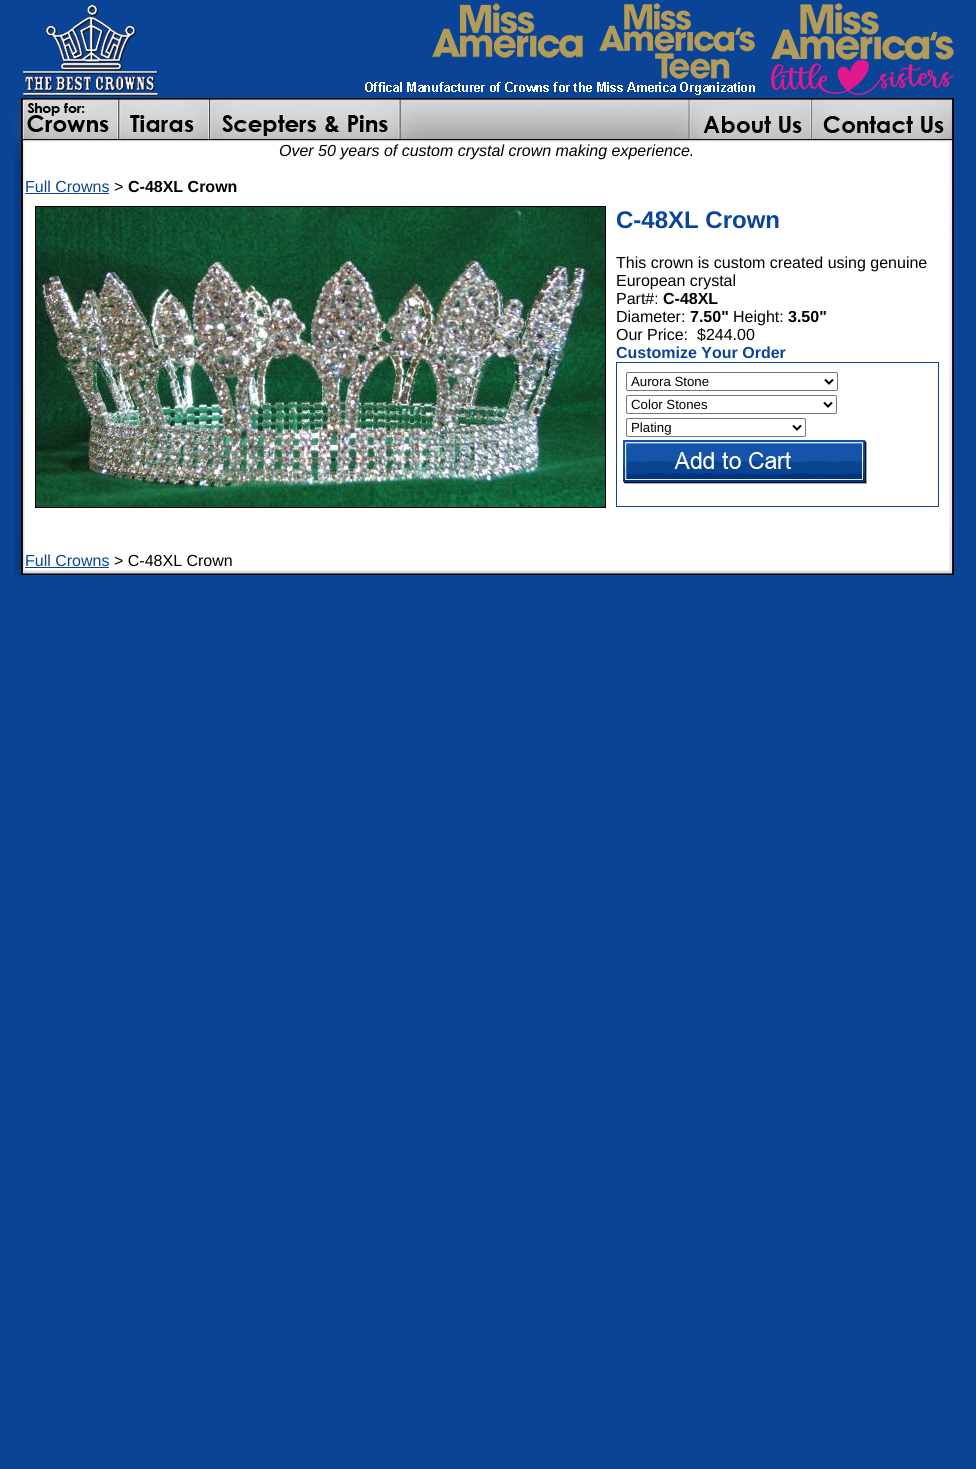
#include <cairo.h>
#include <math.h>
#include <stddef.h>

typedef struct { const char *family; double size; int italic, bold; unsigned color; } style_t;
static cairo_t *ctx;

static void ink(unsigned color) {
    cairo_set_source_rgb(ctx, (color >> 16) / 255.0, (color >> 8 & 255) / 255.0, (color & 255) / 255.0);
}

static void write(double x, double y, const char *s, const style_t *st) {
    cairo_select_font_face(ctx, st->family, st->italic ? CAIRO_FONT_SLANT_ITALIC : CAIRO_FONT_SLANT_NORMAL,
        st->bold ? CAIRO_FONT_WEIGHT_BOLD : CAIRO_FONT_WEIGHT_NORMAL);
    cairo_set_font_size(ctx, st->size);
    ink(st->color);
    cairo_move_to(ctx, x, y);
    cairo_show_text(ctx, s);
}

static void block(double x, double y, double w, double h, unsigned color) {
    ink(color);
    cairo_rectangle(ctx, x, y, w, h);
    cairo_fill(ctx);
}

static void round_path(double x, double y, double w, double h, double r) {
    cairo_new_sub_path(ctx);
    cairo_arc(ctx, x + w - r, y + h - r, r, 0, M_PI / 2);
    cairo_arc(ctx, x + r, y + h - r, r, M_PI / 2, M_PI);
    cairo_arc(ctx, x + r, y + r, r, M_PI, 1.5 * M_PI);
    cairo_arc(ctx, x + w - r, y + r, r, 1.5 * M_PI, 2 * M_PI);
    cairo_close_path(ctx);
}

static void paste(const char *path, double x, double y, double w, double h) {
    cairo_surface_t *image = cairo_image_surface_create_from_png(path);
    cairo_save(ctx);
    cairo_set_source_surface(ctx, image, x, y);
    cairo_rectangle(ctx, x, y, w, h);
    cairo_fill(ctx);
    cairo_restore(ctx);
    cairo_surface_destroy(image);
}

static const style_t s1 = {"Liberation Sans", 16, 1, 0, 0x000000};
static const style_t s2 = {"Liberation Sans", 16, 0, 0, 0x094496};
static const style_t s3 = {"Liberation Sans", 16, 0, 0, 0x000000};
static const style_t s4 = {"Liberation Sans", 16, 0, 1, 0x000000};
static const style_t s5 = {"Liberation Sans", 24, 0, 1, 0x094496};
static const style_t s6 = {"Liberation Sans", 16, 0, 1, 0x094496};
static const style_t s7 = {"Liberation Sans", 13.25, 0, 0, 0x000000};

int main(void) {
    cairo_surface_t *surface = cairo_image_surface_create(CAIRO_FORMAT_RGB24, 976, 1469);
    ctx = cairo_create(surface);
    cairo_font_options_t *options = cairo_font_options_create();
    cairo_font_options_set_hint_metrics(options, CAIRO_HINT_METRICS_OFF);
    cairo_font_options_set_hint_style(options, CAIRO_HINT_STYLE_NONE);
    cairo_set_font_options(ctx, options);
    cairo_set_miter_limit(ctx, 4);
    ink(0x094496);
    cairo_paint(ctx);
    paste("pic1.png", 22, 4, 138, 93);
    paste("pic2.png", 365, 3, 589, 92);
    paste("pic3.png", 13, 98, 8, 477);
    paste("pic4.png", 21, 98, 98, 42);
    paste("pic5.png", 119, 98, 90, 1);
    paste("pic6.png", 119, 99, 90, 41);
    paste("pic7.png", 209, 98, 191, 42);
    paste("pic8.png", 209, 99, 191, 40);
    paste("pic9.png", 400, 98, 289, 42);
    paste("pic10.png", 689, 98, 122, 1);
    paste("pic11.png", 689, 99, 122, 41);
    paste("pic12.png", 811, 98, 143, 42);
    block(954, 98, 9, 1, 0x09408f);
    paste("pic13.png", 21, 140, 933, 2);
    paste("pic14.png", 21, 142, 4, 428);
    block(25, 142, 924, 428, 0xffffff);
    write(279, 156, "Over 50 years of custom crystal crown making experience.", &s1);
    write(25, 192, "Full Crowns", &s2);
    block(25, 193, 84, 1, 0x094496);
    write(114, 192, ">", &s3);
    write(128, 192, "C-48XL Crown", &s4);
    cairo_rectangle(ctx, 35.5, 206.5, 570, 301);
    cairo_set_line_width(ctx, 1);
    cairo_stroke(ctx);
    paste("pic15.png", 36, 207, 569, 300);
    write(616, 228, "C-48XL Crown", &s5);
    write(616, 268, "This crown is custom created using genuine", &s3);
    write(616, 286, "European crystal", &s3);
    write(616, 304, "Part#:", &s3);
    write(663, 304, "C-48XL", &s4);
    write(616, 322, "Diameter:", &s3);
    write(690, 322, "7.50\"", &s4);
    write(733, 322, "Height:", &s3);
    write(788, 322, "3.50\"", &s4);
    write(616, 340, "Our Price:", &s3);
    write(697, 340, "$244.00", &s3);
    write(616, 358, "Customize Your Order", &s6);
    block(616, 362, 323, 145, 0x094496);
    block(617, 363, 321, 143, 0xffffff);
    round_path(626.5, 372.5, 211, 18, 1.5);
    ink(0x767676);
    cairo_stroke(ctx);
    cairo_new_path(ctx);
    cairo_move_to(ctx, 825, 379.5);
    cairo_line_to(ctx, 829, 383.5);
    cairo_line_to(ctx, 833, 379.5);
    ink(0x000000);
    cairo_set_line_width(ctx, 2);
    cairo_stroke(ctx);
    write(631, 386, "Aurora Stone", &s7);
    round_path(626.5, 395.5, 210, 18, 1.5);
    ink(0x767676);
    cairo_set_line_width(ctx, 1);
    cairo_stroke(ctx);
    cairo_new_path(ctx);
    cairo_move_to(ctx, 824, 402.5);
    cairo_line_to(ctx, 828, 406.5);
    cairo_line_to(ctx, 832, 402.5);
    ink(0x000000);
    cairo_set_line_width(ctx, 2);
    cairo_stroke(ctx);
    write(631, 409, "Color Stones", &s7);
    round_path(626.5, 418.5, 179, 18, 1.5);
    ink(0x767676);
    cairo_set_line_width(ctx, 1);
    cairo_stroke(ctx);
    cairo_new_path(ctx);
    cairo_move_to(ctx, 793, 425.5);
    cairo_line_to(ctx, 797, 429.5);
    cairo_line_to(ctx, 801, 425.5);
    ink(0x000000);
    cairo_set_line_width(ctx, 2);
    cairo_stroke(ctx);
    write(631, 432, "Plating", &s7);
    paste("pic16.png", 623, 440, 244, 44);
    write(25, 566, "Full Crowns", &s2);
    block(25, 567, 84, 1, 0x094496);
    write(114, 566, "> C-48XL Crown", &s3);
    paste("pic17.png", 949, 142, 5, 428);
    paste("pic18.png", 21, 570, 933, 5);
    cairo_surface_write_to_png(surface, "screenshot.png");
    cairo_font_options_destroy(options);
    cairo_destroy(ctx);
    cairo_surface_destroy(surface);
    return 0;
}
